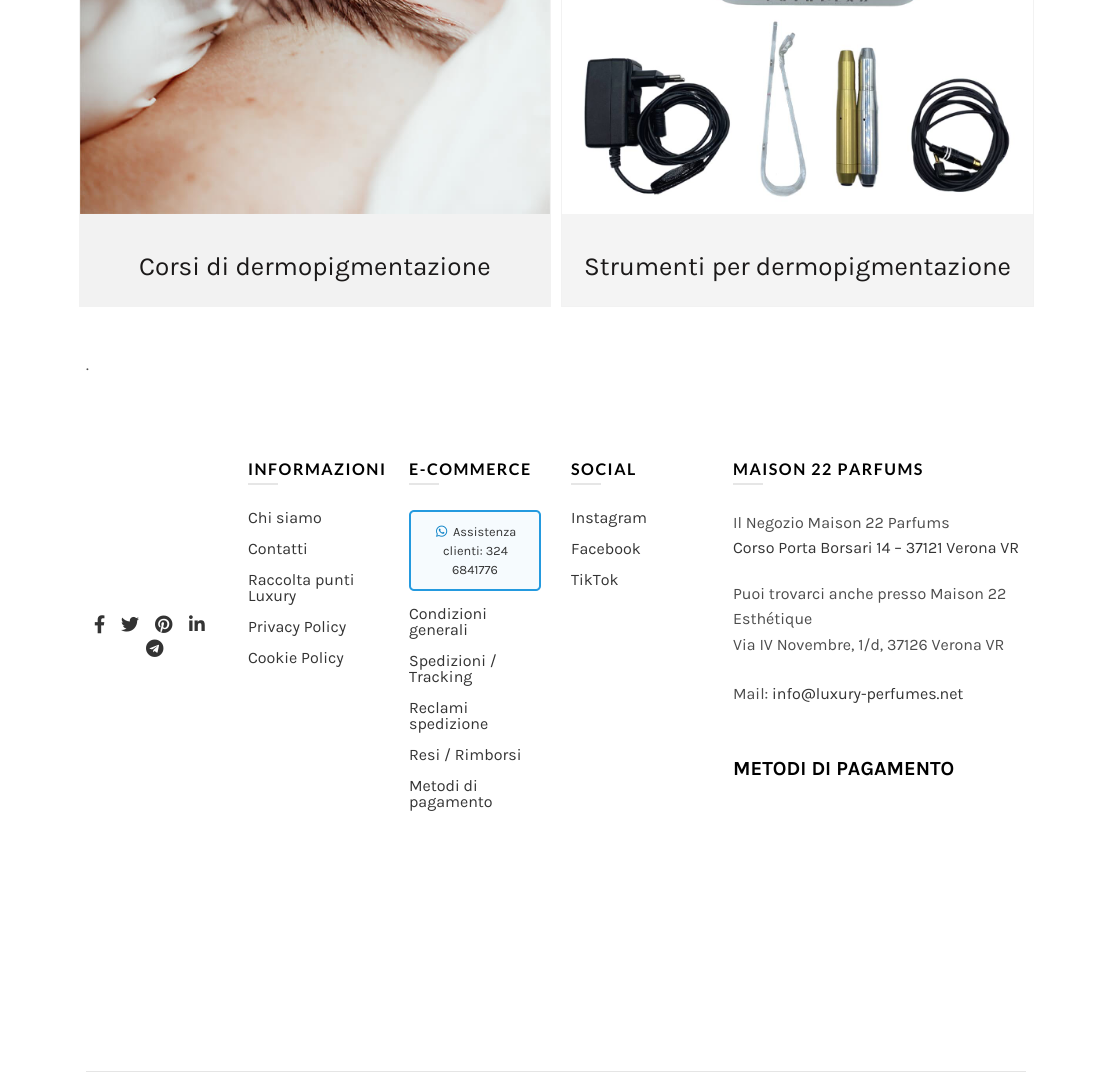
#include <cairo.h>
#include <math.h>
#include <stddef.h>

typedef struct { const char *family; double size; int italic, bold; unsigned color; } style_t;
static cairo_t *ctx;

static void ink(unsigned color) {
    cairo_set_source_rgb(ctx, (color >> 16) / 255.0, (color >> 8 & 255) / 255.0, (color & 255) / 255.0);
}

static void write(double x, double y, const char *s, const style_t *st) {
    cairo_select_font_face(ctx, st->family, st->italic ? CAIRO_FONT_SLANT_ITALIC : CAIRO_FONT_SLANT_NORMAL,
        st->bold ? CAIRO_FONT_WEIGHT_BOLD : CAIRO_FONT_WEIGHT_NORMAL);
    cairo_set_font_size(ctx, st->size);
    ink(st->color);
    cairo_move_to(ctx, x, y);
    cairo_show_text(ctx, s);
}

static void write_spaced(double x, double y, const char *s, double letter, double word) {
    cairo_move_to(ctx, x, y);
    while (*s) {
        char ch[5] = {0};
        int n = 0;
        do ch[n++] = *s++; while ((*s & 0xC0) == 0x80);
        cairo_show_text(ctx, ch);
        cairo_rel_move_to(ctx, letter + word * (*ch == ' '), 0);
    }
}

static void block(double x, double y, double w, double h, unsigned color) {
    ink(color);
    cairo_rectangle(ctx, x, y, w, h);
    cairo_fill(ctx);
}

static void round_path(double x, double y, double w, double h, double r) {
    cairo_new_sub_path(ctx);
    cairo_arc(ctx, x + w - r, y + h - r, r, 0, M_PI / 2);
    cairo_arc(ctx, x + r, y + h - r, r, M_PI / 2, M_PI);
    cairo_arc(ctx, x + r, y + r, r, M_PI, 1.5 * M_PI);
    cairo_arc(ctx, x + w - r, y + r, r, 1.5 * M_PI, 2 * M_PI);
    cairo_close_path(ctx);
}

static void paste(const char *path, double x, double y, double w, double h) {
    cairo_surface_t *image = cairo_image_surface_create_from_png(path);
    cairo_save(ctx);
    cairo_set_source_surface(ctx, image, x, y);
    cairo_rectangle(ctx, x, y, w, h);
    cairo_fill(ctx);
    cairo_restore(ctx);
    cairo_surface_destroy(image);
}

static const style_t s1 = {"Karla", 26, 0, 0, 0x1b1919};
static const style_t s2 = {"Karla", 16, 0, 0, 0x4c4c4c};
static const style_t s3 = {"Karla", 16, 0, 0, 0x333333};
static const style_t s4 = {"Karla", 12.75, 0, 0, 0x333333};
static const style_t s5 = {"Karla", 20, 0, 1, 0x000000};

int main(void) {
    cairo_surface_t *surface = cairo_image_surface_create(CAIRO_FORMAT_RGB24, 1112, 1077);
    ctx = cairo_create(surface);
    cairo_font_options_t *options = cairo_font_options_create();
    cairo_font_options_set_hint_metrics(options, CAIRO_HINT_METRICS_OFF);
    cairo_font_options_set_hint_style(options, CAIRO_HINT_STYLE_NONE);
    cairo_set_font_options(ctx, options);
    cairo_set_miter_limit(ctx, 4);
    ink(0xffffff);
    cairo_paint(ctx);
    block(79, 0, 472, 307, 0xf2f2f2);
    paste("pic1.png", 80, 0, 470, 214);
    write(139, 275, "Corsi di dermopigmentazione", &s1);
    block(562, 214, 471, 92, 0xf4f4f4);
    cairo_rectangle(ctx, 561.5, -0.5, 472, 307);
    ink(0xf2f2f2);
    cairo_set_line_width(ctx, 1);
    cairo_stroke(ctx);
    paste("pic2.png", 562, 0, 471, 214);
    write(584, 275, "Strumenti per dermopigmentazione", &s1);
    write(86, 370, ".", &s2);
    paste("pic3.png", 94, 615, 11, 19);
    paste("pic4.png", 121, 616, 18, 16);
    paste("pic5.png", 155, 615, 18, 18);
    paste("pic6.png", 189, 615, 16, 16);
    paste("pic7.png", 146, 639, 18, 18);
    cairo_select_font_face(ctx, "Lato", CAIRO_FONT_SLANT_NORMAL, CAIRO_FONT_WEIGHT_BOLD);
    ink(0x000000);
    write_spaced(248, 475, "INFORMAZIONI", 1.5, 0);
    block(248, 483, 30, 2, 0xe6e6e6);
    write(248, 523, "Chi siamo", &s3);
    write(248, 554, "Contatti", &s3);
    write(248, 585, "Raccolta punti", &s3);
    write(248, 601, "Luxury", &s3);
    write(248, 632, "Privacy Policy", &s3);
    write(248, 663, "Cookie Policy", &s3);
    cairo_select_font_face(ctx, "Lato", CAIRO_FONT_SLANT_NORMAL, CAIRO_FONT_WEIGHT_BOLD);
    ink(0x000000);
    write_spaced(409, 475, "E-COMMERCE", 1.5, 0);
    block(409, 483, 30, 2, 0xe6e6e6);
    ink(0xf6fbfe);
    round_path(410, 511, 130, 79, 4);
    cairo_fill_preserve(ctx);
    ink(0x249adf);
    cairo_set_line_width(ctx, 2);
    cairo_stroke(ctx);
    paste("pic8.png", 436, 525, 12, 12);
    write(453, 536, "Assistenza", &s4);
    write(443, 555, "clienti: 324", &s4);
    write(452, 574, "6841776", &s4);
    write(409, 619, "Condizioni", &s3);
    write(409, 635, "generali", &s3);
    write(409, 666, "Spedizioni /", &s3);
    write(409, 682, "Tracking", &s3);
    write(409, 713, "Reclami", &s3);
    write(409, 729, "spedizione", &s3);
    write(409, 760, "Resi / Rimborsi", &s3);
    write(409, 791, "Metodi di", &s3);
    write(409, 807, "pagamento", &s3);
    cairo_select_font_face(ctx, "Lato", CAIRO_FONT_SLANT_NORMAL, CAIRO_FONT_WEIGHT_BOLD);
    ink(0x000000);
    write_spaced(571, 475, "SOCIAL", 1.5, 0);
    block(571, 483, 30, 2, 0xe6e6e6);
    write(571, 523, "Instagram", &s3);
    write(571, 554, "Facebook", &s3);
    write(571, 585, "TikTok", &s3);
    cairo_select_font_face(ctx, "Lato", CAIRO_FONT_SLANT_NORMAL, CAIRO_FONT_WEIGHT_BOLD);
    ink(0x000000);
    write_spaced(733, 475, "MAISON 22 PARFUMS", 1.5, 0);
    block(733, 483, 30, 2, 0xe6e6e6);
    write(733, 528, "Il Negozio Maison 22 Parfums", &s2);
    write(733, 553, "Corso Porta Borsari 14 – 37121 Verona VR", &s3);
    write(733, 599, "Puoi trovarci anche presso Maison 22", &s2);
    write(733, 624, "Esthétique", &s2);
    write(733, 650, "Via IV Novembre, 1/d, 37126 Verona VR", &s2);
    write(733, 699, "Mail:", &s2);
    write(772, 699, "info@luxury-perfumes.net", &s3);
    write(733, 775, "METODI DI PAGAMENTO", &s5);
    block(86, 1071, 940, 1, 0xe5e5e5);
    cairo_surface_write_to_png(surface, "screenshot.png");
    cairo_font_options_destroy(options);
    cairo_destroy(ctx);
    cairo_surface_destroy(surface);
    return 0;
}
